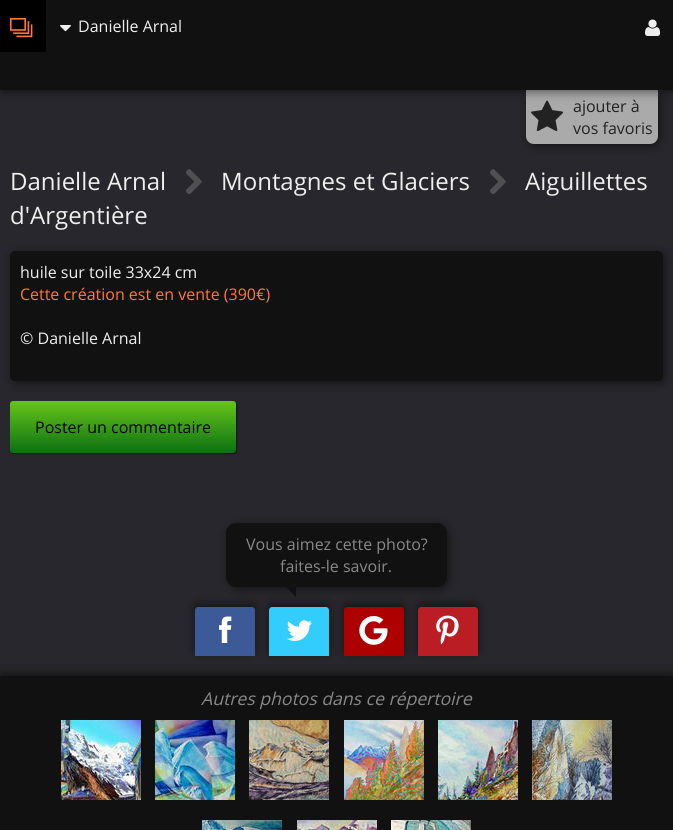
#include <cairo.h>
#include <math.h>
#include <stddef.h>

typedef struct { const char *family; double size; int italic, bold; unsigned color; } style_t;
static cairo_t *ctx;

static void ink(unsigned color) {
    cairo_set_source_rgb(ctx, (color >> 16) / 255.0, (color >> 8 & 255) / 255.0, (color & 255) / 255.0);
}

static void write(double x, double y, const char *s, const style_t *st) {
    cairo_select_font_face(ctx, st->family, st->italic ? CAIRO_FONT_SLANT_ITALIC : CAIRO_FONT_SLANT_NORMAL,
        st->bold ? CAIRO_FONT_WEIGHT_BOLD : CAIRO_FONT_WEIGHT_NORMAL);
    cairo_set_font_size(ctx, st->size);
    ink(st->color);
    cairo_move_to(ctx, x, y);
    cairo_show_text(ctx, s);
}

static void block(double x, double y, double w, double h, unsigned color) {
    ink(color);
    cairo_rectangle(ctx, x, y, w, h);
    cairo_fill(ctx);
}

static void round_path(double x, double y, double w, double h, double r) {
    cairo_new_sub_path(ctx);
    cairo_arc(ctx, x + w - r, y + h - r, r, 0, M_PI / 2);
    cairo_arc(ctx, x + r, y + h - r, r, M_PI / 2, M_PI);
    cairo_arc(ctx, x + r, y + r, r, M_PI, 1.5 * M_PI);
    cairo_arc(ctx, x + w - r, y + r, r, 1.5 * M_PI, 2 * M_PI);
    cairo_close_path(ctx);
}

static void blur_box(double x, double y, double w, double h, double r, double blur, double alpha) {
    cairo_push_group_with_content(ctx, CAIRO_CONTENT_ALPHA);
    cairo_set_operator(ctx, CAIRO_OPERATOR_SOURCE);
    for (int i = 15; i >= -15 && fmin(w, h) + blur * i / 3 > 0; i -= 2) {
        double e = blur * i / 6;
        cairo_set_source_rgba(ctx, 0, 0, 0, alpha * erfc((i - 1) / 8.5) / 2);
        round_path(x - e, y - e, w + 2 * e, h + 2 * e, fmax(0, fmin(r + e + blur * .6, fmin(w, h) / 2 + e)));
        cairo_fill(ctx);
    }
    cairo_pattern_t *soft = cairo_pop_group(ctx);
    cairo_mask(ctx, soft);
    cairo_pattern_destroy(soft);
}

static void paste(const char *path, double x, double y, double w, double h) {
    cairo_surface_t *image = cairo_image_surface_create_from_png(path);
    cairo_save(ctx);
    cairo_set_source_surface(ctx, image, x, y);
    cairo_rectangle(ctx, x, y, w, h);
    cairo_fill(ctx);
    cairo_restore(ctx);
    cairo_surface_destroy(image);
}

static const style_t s1 = {"Open Sans", 16, 0, 0, 0xeeeeee};
static const style_t s2 = {"Open Sans", 16, 0, 0, 0x222222};
static const style_t s3 = {"Open Sans", 24, 0, 0, 0xeeeeee};
static const style_t s4 = {"Open Sans", 16, 0, 0, 0xff7733};
static const style_t s5 = {"Open Sans", 16, 0, 0, 0x000000};
static const style_t s6 = {"Open Sans", 16, 0, 0, 0x888888};
static const style_t s7 = {"Open Sans", 17.6, 1, 0, 0x888888};

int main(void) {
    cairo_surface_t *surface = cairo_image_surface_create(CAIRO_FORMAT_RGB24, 673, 830);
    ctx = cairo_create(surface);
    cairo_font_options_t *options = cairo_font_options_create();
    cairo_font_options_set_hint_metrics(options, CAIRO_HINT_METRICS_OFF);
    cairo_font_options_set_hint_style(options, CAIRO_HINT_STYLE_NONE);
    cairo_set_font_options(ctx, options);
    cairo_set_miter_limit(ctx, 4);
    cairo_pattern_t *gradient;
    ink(0x28272d);
    cairo_paint(ctx);
    ink(0x000000);
    blur_box(528, 92, 132, 54, 8, 5, 0.5);
    ink(0xaaaaaa);
    cairo_new_path(ctx);
    cairo_move_to(ctx, 526, 90);
    cairo_line_to(ctx, 658, 90);
    cairo_line_to(ctx, 658, 136);
    cairo_curve_to(ctx, 658, 140.5, 654.5, 144, 650, 144);
    cairo_line_to(ctx, 534, 144);
    cairo_curve_to(ctx, 529.5, 144, 526, 140.5, 526, 136);
    cairo_close_path(ctx);
    cairo_fill(ctx);
    paste("pic4.png", 531, 100, 32, 32);
    ink(0x000000);
    blur_box(2, -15, 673, 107, 0, 5, 0.5);
    block(0, 0, 673, 90, 0x111111);
    block(0, 0, 46, 52, 0x000000);
    paste("pic1.png", 10, 18, 23, 20);
    paste("pic2.png", 60, 25, 11, 7);
    write(78, 32, "Danielle Arnal", &s1);
    paste("pic3.png", 645, 19, 16, 17);
    write(573, 112, "ajouter à", &s2);
    write(573, 134, "vos favoris", &s2);
    write(10, 190, "Danielle Arnal", &s3);
    paste("pic5.png", 186, 169, 16, 25);
    write(221, 190, "Montagnes et Glaciers", &s3);
    paste("pic5.png", 490, 169, 16, 25);
    write(525, 190, "Aiguillettes", &s3);
    write(10, 224, "d'Argentière", &s3);
    ink(0x000000);
    blur_box(12, 253, 653, 130, 5, 5, 0.5);
    ink(0x111111);
    round_path(10, 251, 653, 130, 5);
    cairo_fill(ctx);
    write(20, 278, "huile sur toile 33x24 cm", &s1);
    write(20, 300, "Cette création est en vente (390€)", &s4);
    write(20, 344, "© Danielle Arnal", &s1);
    ink(0x000000);
    blur_box(11, 402, 226, 52, 3, 0.5, 0.5);
    gradient = cairo_pattern_create_linear(123, 401, 123, 453);
    cairo_pattern_add_color_stop_rgba(gradient, 0, 0.404, 0.773, 0.102, 1);
    cairo_pattern_add_color_stop_rgba(gradient, 1, 0.043, 0.443, 0.075, 1);
    cairo_set_source(ctx, gradient);
    cairo_pattern_destroy(gradient);
    round_path(10, 401, 226, 52, 3);
    cairo_fill(ctx);
    write(35, 433, "Poster un commentaire", &s5);
    ink(0x000000);
    blur_box(228, 525, 221, 64, 10, 5, 0.5);
    ink(0x111111);
    round_path(226, 523, 221, 64, 10);
    cairo_fill(ctx);
    write(246, 550, "Vous aimez cette photo?", &s6);
    write(280, 572, "faites-le savoir.", &s6);
    ink(0x111111);
    cairo_new_path(ctx);
    cairo_move_to(ctx, 286, 587);
    cairo_line_to(ctx, 296, 587);
    cairo_line_to(ctx, 296, 597);
    cairo_close_path(ctx);
    cairo_fill(ctx);
    ink(0x000000);
    blur_box(195, 604, 60, 49, 3, 5, 0.5);
    ink(0x3c5998);
    cairo_new_path(ctx);
    cairo_move_to(ctx, 198, 607);
    cairo_line_to(ctx, 252, 607);
    cairo_curve_to(ctx, 253.5, 607, 255, 608.5, 255, 610);
    cairo_line_to(ctx, 255, 656);
    cairo_line_to(ctx, 195, 656);
    cairo_line_to(ctx, 195, 610);
    cairo_curve_to(ctx, 195, 608.5, 196.5, 607, 198, 607);
    cairo_close_path(ctx);
    cairo_fill(ctx);
    paste("pic6.png", 219, 616, 13, 27);
    ink(0x000000);
    blur_box(269, 604, 60, 49, 3, 5, 0.5);
    ink(0x32cdfd);
    cairo_new_path(ctx);
    cairo_move_to(ctx, 272, 607);
    cairo_line_to(ctx, 326, 607);
    cairo_curve_to(ctx, 327.5, 607, 329, 608.5, 329, 610);
    cairo_line_to(ctx, 329, 656);
    cairo_line_to(ctx, 269, 656);
    cairo_line_to(ctx, 269, 610);
    cairo_curve_to(ctx, 269, 608.5, 270.5, 607, 272, 607);
    cairo_close_path(ctx);
    cairo_fill(ctx);
    paste("pic7.png", 286, 620, 26, 21);
    ink(0x000000);
    blur_box(344, 604, 60, 49, 3, 5, 0.5);
    ink(0xad0000);
    cairo_new_path(ctx);
    cairo_move_to(ctx, 347, 607);
    cairo_line_to(ctx, 401, 607);
    cairo_curve_to(ctx, 402.5, 607, 404, 608.5, 404, 610);
    cairo_line_to(ctx, 404, 656);
    cairo_line_to(ctx, 344, 656);
    cairo_line_to(ctx, 344, 610);
    cairo_curve_to(ctx, 344, 608.5, 345.5, 607, 347, 607);
    cairo_close_path(ctx);
    cairo_fill(ctx);
    paste("pic8.png", 359, 616, 29, 29);
    ink(0x000000);
    blur_box(418, 604, 60, 49, 3, 5, 0.5);
    ink(0xba1d24);
    cairo_new_path(ctx);
    cairo_move_to(ctx, 421, 607);
    cairo_line_to(ctx, 475, 607);
    cairo_curve_to(ctx, 476.5, 607, 478, 608.5, 478, 610);
    cairo_line_to(ctx, 478, 656);
    cairo_line_to(ctx, 418, 656);
    cairo_line_to(ctx, 418, 610);
    cairo_curve_to(ctx, 418, 608.5, 419.5, 607, 421, 607);
    cairo_close_path(ctx);
    cairo_fill(ctx);
    paste("pic9.png", 436, 615, 23, 30);
    ink(0x000000);
    blur_box(0, 673, 673, 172, 0, 5, 0.5);
    block(0, 676, 673, 154, 0x111111);
    write(201, 705, "Autres photos dans ce répertoire", &s7);
    paste("pic10.png", 61, 720, 80, 80);
    paste("pic11.png", 155, 720, 80, 80);
    paste("pic12.png", 249, 720, 80, 80);
    paste("pic13.png", 344, 720, 80, 80);
    paste("pic14.png", 438, 720, 80, 80);
    paste("pic15.png", 532, 720, 80, 80);
    paste("pic16.png", 202, 820, 80, 10);
    paste("pic17.png", 297, 820, 80, 10);
    paste("pic18.png", 391, 820, 80, 10);
    cairo_surface_write_to_png(surface, "screenshot.png");
    cairo_font_options_destroy(options);
    cairo_destroy(ctx);
    cairo_surface_destroy(surface);
    return 0;
}
